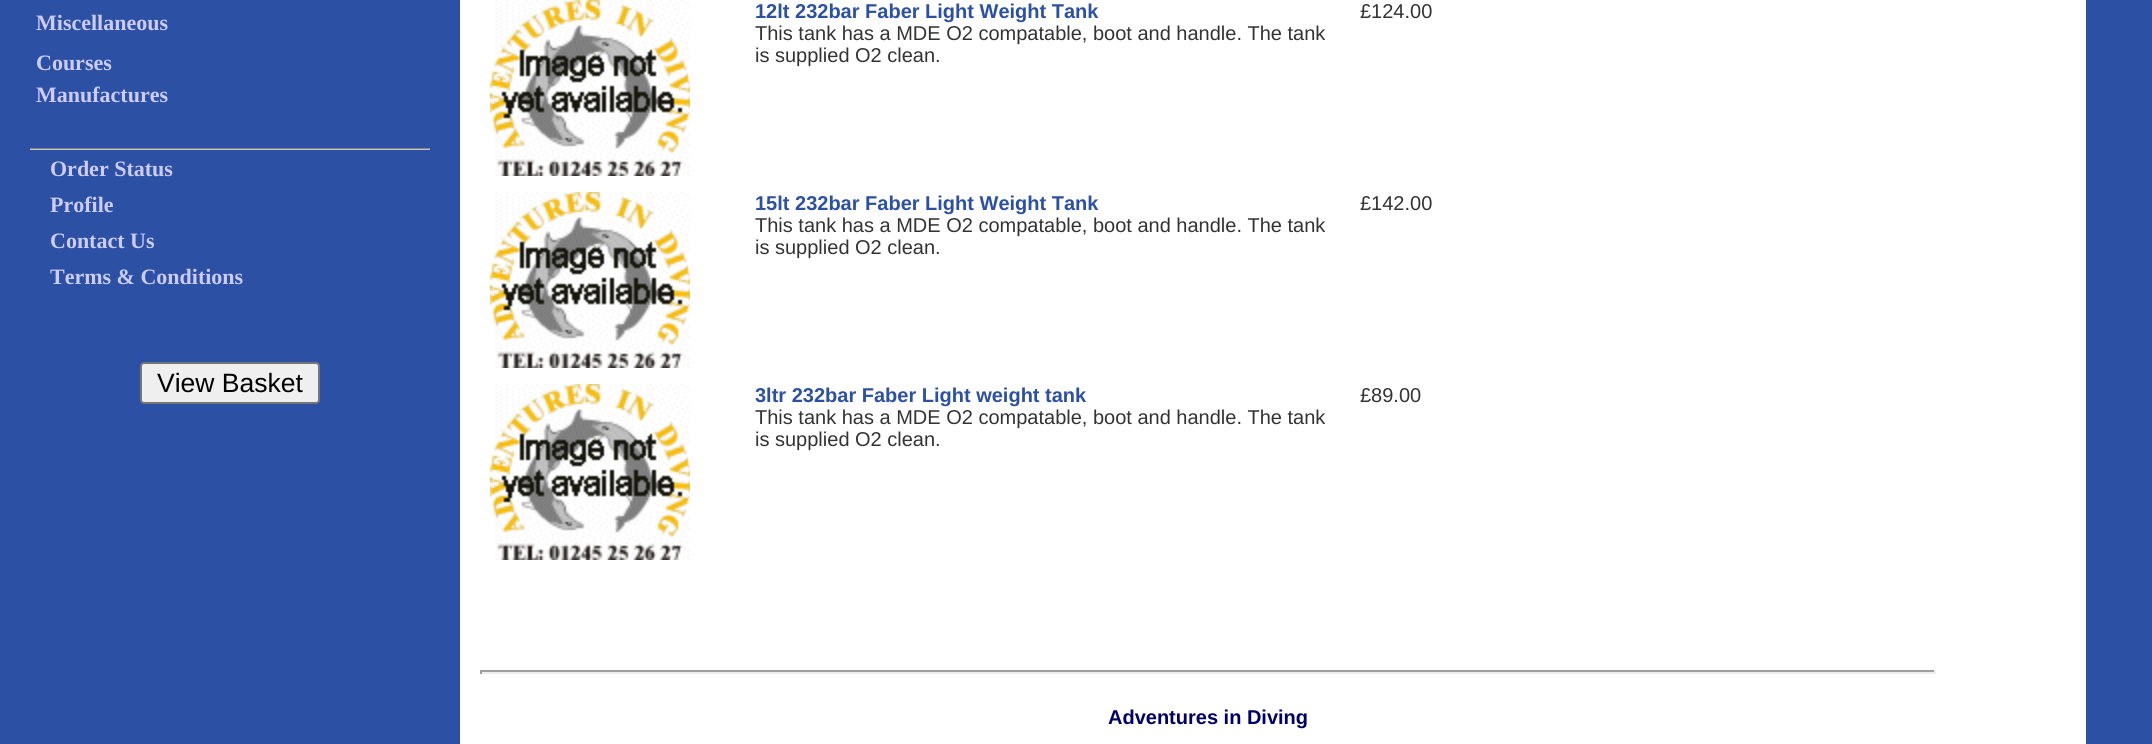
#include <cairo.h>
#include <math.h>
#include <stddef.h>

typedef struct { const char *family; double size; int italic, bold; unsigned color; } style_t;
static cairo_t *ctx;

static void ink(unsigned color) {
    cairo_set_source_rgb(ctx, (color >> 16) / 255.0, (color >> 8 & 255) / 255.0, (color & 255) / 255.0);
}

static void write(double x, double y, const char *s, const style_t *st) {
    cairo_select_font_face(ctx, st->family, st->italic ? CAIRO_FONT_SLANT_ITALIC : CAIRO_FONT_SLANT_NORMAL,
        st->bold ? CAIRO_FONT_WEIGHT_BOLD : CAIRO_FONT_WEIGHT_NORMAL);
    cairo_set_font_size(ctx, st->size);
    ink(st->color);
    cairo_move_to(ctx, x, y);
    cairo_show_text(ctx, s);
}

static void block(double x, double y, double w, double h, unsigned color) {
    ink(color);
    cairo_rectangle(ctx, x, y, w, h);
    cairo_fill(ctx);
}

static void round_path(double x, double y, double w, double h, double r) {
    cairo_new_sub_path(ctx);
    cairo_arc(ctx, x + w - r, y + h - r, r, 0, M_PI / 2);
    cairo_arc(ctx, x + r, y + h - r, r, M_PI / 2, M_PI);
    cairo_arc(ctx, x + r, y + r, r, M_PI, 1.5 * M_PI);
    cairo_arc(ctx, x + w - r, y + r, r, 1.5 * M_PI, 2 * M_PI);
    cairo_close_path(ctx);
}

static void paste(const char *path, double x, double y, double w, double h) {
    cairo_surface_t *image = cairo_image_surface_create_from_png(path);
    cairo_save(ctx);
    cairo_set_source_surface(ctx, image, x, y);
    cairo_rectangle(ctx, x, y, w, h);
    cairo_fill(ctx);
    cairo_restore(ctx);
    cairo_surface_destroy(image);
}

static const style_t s1 = {"Liberation Serif", 22, 0, 1, 0xccccff};
static const style_t s2 = {"Liberation Sans", 26.5, 0, 0, 0x000000};
static const style_t s3 = {"Liberation Sans", 20, 0, 1, 0x2c50a4};
static const style_t s4 = {"Liberation Sans", 20, 0, 0, 0x333333};
static const style_t s5 = {"Liberation Sans", 20, 0, 1, 0x000066};

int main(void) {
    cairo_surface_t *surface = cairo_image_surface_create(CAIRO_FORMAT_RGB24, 2152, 744);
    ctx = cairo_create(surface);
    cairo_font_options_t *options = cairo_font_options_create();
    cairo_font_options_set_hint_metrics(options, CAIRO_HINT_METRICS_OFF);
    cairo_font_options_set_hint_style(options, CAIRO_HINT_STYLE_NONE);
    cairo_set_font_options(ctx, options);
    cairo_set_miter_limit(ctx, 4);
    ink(0xffffff);
    cairo_paint(ctx);
    block(0, 0, 460, 744, 0x2c50a4);
    write(36, 30, "Miscellaneous", &s1);
    write(36, 70, "Courses", &s1);
    write(36, 102, "Manufactures", &s1);
    paste("pic1.png", 30, 148, 400, 2);
    write(50, 176, "Order Status", &s1);
    write(50, 212, "Profile", &s1);
    write(50, 248, "Contact Us", &s1);
    write(50, 284, "Terms & Conditions", &s1);
    ink(0xefefef);
    round_path(141, 363, 178, 40, 3);
    cairo_fill_preserve(ctx);
    ink(0x767676);
    cairo_stroke(ctx);
    write(157, 392, "View Basket", &s2);
    paste("pic2.png", 490, 0, 200, 176);
    write(755, 18, "12lt 232bar Faber Light Weight Tank", &s3);
    write(755, 40, "This tank has a MDE O2 compatable, boot and handle. The tank", &s4);
    write(755, 62, "is supplied O2 clean.", &s4);
    write(1360, 18, "£124.00", &s4);
    paste("pic2.png", 490, 192, 200, 176);
    write(755, 210, "15lt 232bar Faber Light Weight Tank", &s3);
    write(755, 232, "This tank has a MDE O2 compatable, boot and handle. The tank", &s4);
    write(755, 254, "is supplied O2 clean.", &s4);
    write(1360, 210, "£142.00", &s4);
    paste("pic2.png", 490, 384, 200, 176);
    write(755, 402, "3ltr 232bar Faber Light weight tank", &s3);
    write(755, 424, "This tank has a MDE O2 compatable, boot and handle. The tank", &s4);
    write(755, 446, "is supplied O2 clean.", &s4);
    write(1360, 402, "£89.00", &s4);
    block(480, 670, 1456, 2, 0x9f9f9f);
    block(1934, 670, 2, 4, 0xeeeeee);
    block(480, 672, 1456, 2, 0xeeeeee);
    block(480, 670, 2, 4, 0x9f9f9f);
    write(1108, 724, "Adventures in Diving", &s5);
    block(2086, 0, 66, 744, 0x2c50a4);
    cairo_surface_write_to_png(surface, "screenshot.png");
    cairo_font_options_destroy(options);
    cairo_destroy(ctx);
    cairo_surface_destroy(surface);
    return 0;
}
